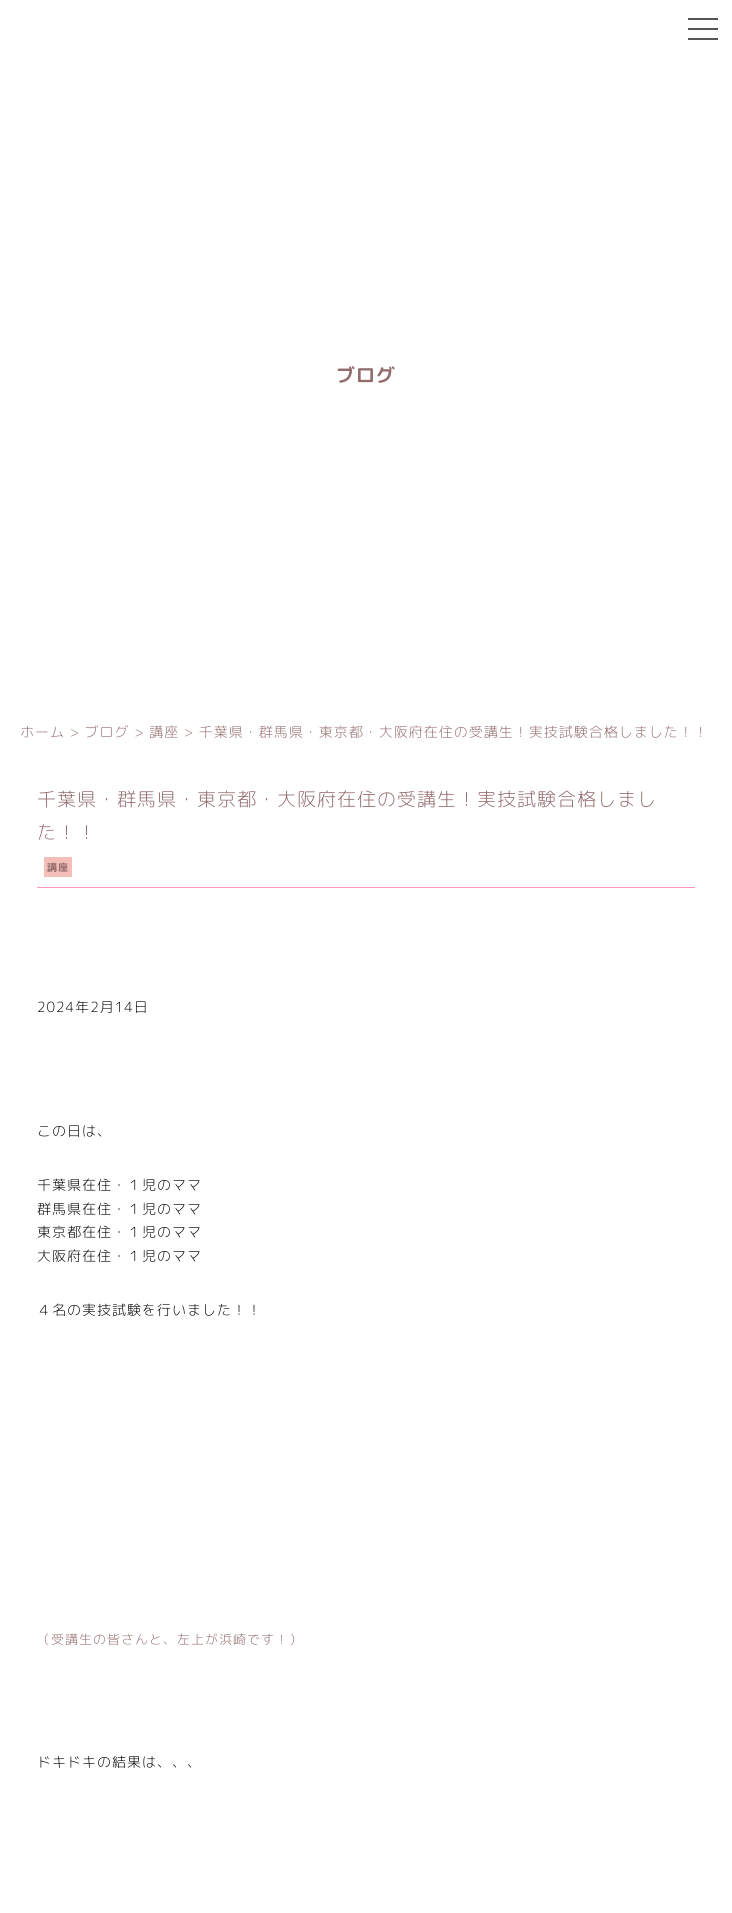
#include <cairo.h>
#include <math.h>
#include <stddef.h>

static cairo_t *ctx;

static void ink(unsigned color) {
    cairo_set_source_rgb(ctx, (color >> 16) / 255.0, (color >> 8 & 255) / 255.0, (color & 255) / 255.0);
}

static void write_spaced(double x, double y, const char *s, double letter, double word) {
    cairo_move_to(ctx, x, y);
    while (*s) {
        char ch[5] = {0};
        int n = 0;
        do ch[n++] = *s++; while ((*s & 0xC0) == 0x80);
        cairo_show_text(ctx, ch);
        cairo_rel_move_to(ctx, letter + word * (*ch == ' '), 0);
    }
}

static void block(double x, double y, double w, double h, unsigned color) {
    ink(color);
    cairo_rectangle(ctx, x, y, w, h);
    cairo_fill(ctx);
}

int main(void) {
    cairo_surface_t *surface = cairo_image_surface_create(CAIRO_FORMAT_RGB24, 732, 1913);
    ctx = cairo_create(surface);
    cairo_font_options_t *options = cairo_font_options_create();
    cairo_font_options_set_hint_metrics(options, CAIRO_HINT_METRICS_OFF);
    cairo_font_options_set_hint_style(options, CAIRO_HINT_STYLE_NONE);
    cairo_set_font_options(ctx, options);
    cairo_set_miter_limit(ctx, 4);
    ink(0xffffff);
    cairo_paint(ctx);
    block(688, 18, 30, 2, 0x555555);
    block(688, 28, 30, 2, 0x555555);
    block(688, 38, 30, 2, 0x555555);
    cairo_select_font_face(ctx, "Rounded Mplus 1c Bold", CAIRO_FONT_SLANT_NORMAL, CAIRO_FONT_WEIGHT_BOLD);
    cairo_set_font_size(ctx, 19);
    ink(0x936c6c);
    write_spaced(336, 382, "ブログ", 1, 0);
    cairo_select_font_face(ctx, "Rounded Mplus 1c Light", CAIRO_FONT_SLANT_NORMAL, CAIRO_FONT_WEIGHT_NORMAL);
    cairo_set_font_size(ctx, 14);
    write_spaced(20, 737, "ホーム > ブログ > 講座 > 千葉県・群馬県・東京都・大阪府在住の受講生！実技試験合格しました！！", 1, 0);
    cairo_set_font_size(ctx, 19);
    write_spaced(37, 806, "千葉県・群馬県・東京都・大阪府在住の受講生！実技試験合格しまし", 1, 0);
    write_spaced(37, 839, "た！！", 1, 0);
    block(44, 857, 28, 20, 0xf2beb7);
    cairo_select_font_face(ctx, "Rounded Mplus 1c Bold", CAIRO_FONT_SLANT_NORMAL, CAIRO_FONT_WEIGHT_BOLD);
    cairo_set_font_size(ctx, 10);
    ink(0x936c6c);
    write_spaced(47, 871, "講座", 1, 0);
    block(37, 887, 658, 1, 0xff98b4);
    cairo_select_font_face(ctx, "Rounded Mplus 1c Light", CAIRO_FONT_SLANT_NORMAL, CAIRO_FONT_WEIGHT_NORMAL);
    cairo_set_font_size(ctx, 14);
    ink(0x000000);
    write_spaced(37, 1012, "2024年2月14日", 1, 0);
    write_spaced(37, 1136, "この日は、", 1, 0);
    write_spaced(37, 1190, "千葉県在住・１児のママ", 1, 0);
    write_spaced(37, 1214, "群馬県在住・１児のママ", 1, 0);
    write_spaced(37, 1237, "東京都在住・１児のママ", 1, 0);
    write_spaced(37, 1261, "大阪府在住・１児のママ", 1, 0);
    write_spaced(37, 1315, "４名の実技試験を行いました！！", 1, 0);
    cairo_set_font_size(ctx, 13);
    ink(0x936c6c);
    write_spaced(37, 1644, "（受講生の皆さんと、左上が浜崎です！）", 1, 0);
    cairo_set_font_size(ctx, 14);
    ink(0x000000);
    write_spaced(37, 1767, "ドキドキの結果は、、、", 1, 0);
    cairo_surface_write_to_png(surface, "screenshot.png");
    cairo_font_options_destroy(options);
    cairo_destroy(ctx);
    cairo_surface_destroy(surface);
    return 0;
}
